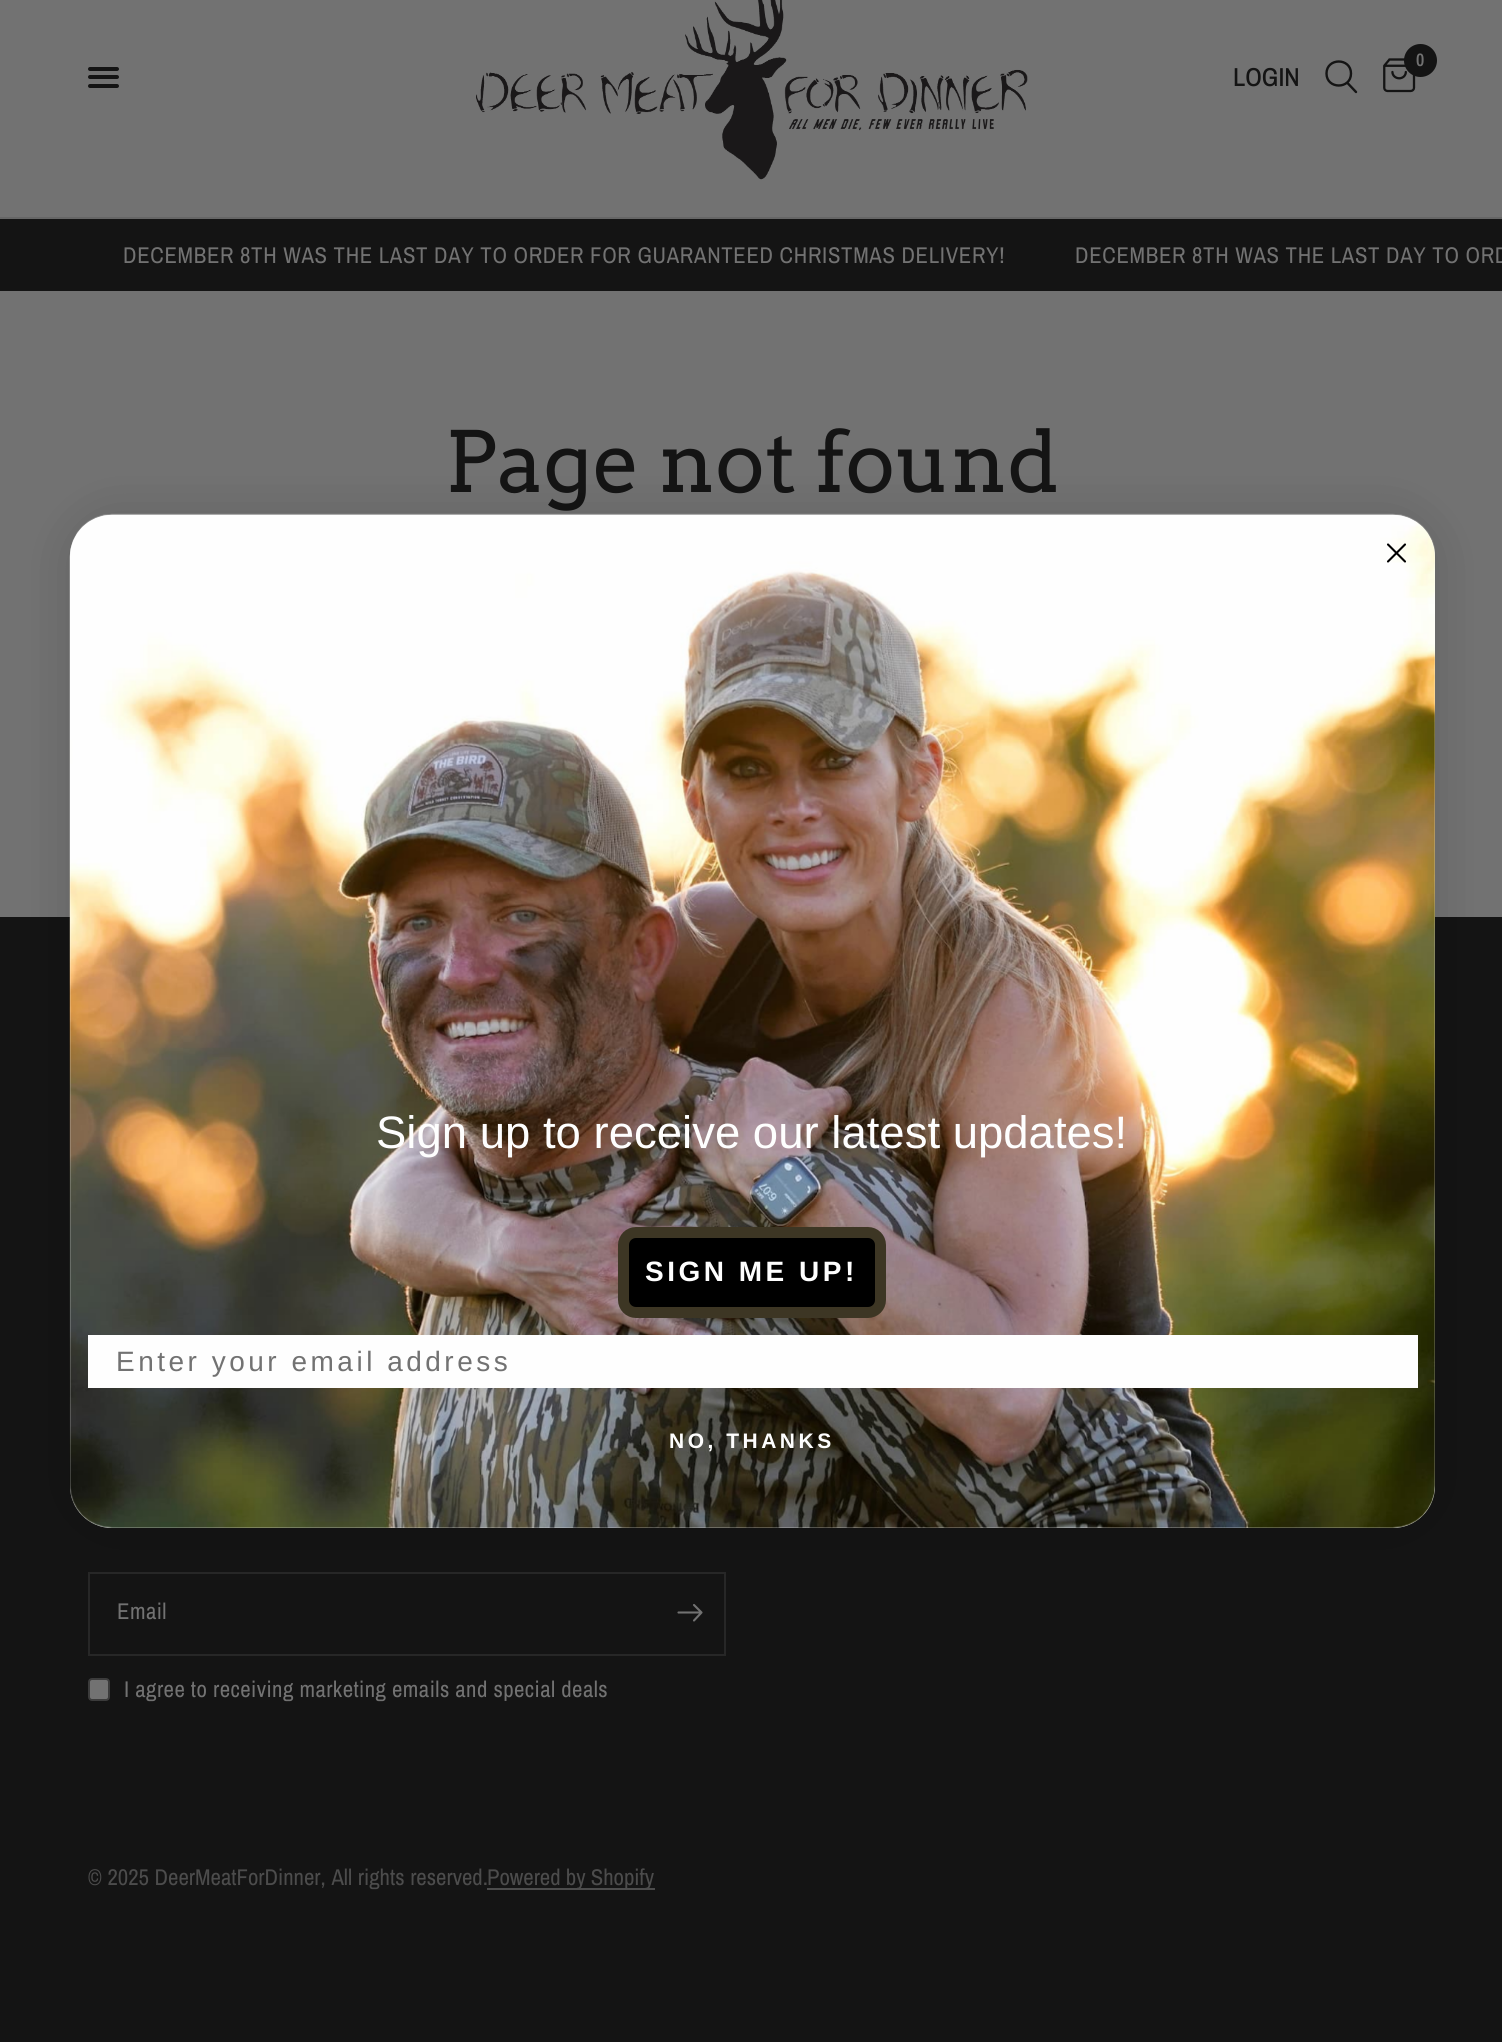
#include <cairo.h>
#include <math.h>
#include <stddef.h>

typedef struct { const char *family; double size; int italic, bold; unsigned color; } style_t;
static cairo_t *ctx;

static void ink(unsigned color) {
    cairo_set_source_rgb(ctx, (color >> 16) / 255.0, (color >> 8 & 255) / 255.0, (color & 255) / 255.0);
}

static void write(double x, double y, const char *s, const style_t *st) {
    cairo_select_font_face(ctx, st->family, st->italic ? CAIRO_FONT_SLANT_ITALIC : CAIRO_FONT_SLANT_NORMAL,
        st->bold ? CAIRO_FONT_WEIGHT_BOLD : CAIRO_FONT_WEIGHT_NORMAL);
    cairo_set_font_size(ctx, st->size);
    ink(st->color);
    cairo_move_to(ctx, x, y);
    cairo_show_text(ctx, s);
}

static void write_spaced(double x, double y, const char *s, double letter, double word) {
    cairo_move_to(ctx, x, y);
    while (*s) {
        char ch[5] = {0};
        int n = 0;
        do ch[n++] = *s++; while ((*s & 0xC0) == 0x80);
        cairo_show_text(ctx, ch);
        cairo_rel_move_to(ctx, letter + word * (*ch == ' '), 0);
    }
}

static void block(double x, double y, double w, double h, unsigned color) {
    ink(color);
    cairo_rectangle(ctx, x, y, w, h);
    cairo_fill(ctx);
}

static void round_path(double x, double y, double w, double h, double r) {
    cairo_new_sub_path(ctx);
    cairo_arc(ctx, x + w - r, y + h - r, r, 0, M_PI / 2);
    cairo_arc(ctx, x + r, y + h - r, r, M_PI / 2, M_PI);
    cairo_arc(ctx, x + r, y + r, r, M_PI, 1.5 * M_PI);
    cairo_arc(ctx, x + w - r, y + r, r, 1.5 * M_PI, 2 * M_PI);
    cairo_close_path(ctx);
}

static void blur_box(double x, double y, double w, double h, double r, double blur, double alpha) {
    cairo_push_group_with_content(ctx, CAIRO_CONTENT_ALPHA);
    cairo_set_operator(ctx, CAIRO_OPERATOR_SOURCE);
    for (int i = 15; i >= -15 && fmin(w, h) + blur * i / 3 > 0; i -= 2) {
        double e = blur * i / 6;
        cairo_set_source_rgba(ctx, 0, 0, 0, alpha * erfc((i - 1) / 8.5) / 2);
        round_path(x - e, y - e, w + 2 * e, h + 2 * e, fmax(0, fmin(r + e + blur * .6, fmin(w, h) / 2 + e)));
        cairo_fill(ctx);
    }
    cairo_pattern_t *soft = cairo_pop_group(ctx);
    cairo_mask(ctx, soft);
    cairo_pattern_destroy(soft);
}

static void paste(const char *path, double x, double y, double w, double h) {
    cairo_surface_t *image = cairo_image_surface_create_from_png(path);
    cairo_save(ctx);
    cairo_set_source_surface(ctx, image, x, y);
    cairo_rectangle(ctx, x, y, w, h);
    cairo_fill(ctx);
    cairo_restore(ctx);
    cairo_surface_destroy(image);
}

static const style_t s1 = {"Archivo Narrow Medium", 26, 0, 0, 0x141414};
static const style_t s2 = {"Archivo Narrow SemiBold", 18, 0, 0, 0x727272};
static const style_t s3 = {"Arvo", 84, 0, 0, 0x141414};
static const style_t s4 = {"Archivo Narrow", 22.75, 0, 0, 0x4c4c4c};
static const style_t s5 = {"Liberation Sans", 45.5, 0, 0, 0xfefefe};

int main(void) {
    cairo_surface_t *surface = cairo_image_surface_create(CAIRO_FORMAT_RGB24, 1502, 2042);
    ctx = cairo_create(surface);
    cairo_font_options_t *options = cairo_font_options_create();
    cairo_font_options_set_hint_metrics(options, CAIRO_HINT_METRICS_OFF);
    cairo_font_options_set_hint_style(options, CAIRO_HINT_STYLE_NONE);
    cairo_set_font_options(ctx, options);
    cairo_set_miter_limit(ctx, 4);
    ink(0x727272);
    cairo_paint(ctx);
    block(0, 217, 1502, 2, 0x666666);
    ink(0x141414);
    round_path(88, 67, 31, 4, 2);
    cairo_fill(ctx);
    round_path(88, 75, 31, 4, 2);
    cairo_fill(ctx);
    round_path(88, 84, 31, 4, 2);
    cairo_fill(ctx);
    paste("pic1.png", 476, 0, 552, 180);
    write(1233, 86, "LOGIN", &s1);
    cairo_new_path(ctx);
    cairo_move_to(ctx, 1347.5, 83);
    cairo_line_to(ctx, 1356, 92);
    cairo_move_to(ctx, 1351, 73.5);
    cairo_curve_to(ctx, 1351, 89.5, 1326.5, 89.5, 1326.5, 73.5);
    cairo_curve_to(ctx, 1326.5, 57.5, 1351, 57.5, 1351, 73.5);
    cairo_close_path(ctx);
    cairo_set_line_width(ctx, 2.4);
    cairo_set_line_cap(ctx, CAIRO_LINE_CAP_ROUND);
    cairo_set_line_join(ctx, CAIRO_LINE_JOIN_ROUND);
    cairo_stroke(ctx);
    paste("pic2.png", 1383, 58, 33, 35);
    cairo_arc(ctx, 1420.5, 60.5, 16.5, 0, 2 * M_PI);
    cairo_fill(ctx);
    write(1416, 66, "0", &s2);
    block(0, 219, 1502, 72, 0x141414);
    cairo_select_font_face(ctx, "Archivo Narrow", CAIRO_FONT_SLANT_NORMAL, CAIRO_FONT_WEIGHT_NORMAL);
    cairo_set_font_size(ctx, 22.75);
    ink(0x727272);
    write_spaced(123, 263, "DECEMBER 8TH WAS THE LAST DAY TO ORDER FOR GUARANTEED CHRISTMAS DELIVERY!", 0.68, 0);
    write_spaced(1075, 263, "DECEMBER 8TH WAS THE LAST DAY TO ORD", 0.68, 0);
    write(445, 492, "Page not found", &s3);
    block(0, 917, 1502, 1125, 0x141414);
    cairo_rectangle(ctx, 89, 1573, 636, 82);
    ink(0x272727);
    cairo_set_line_width(ctx, 2);
    cairo_set_line_cap(ctx, CAIRO_LINE_CAP_BUTT);
    cairo_set_line_join(ctx, CAIRO_LINE_JOIN_MITER);
    cairo_stroke(ctx);
    cairo_select_font_face(ctx, "Archivo Narrow", CAIRO_FONT_SLANT_NORMAL, CAIRO_FONT_WEIGHT_NORMAL);
    cairo_set_font_size(ctx, 22.75);
    ink(0x727272);
    write_spaced(117, 1619, "Email", 0.45, 0);
    cairo_new_path(ctx);
    cairo_move_to(ctx, 678.5, 1612.5);
    cairo_line_to(ctx, 699.5, 1612.5);
    cairo_move_to(ctx, 694, 1605);
    cairo_line_to(ctx, 701.5, 1612.5);
    cairo_line_to(ctx, 694, 1620.5);
    cairo_set_line_width(ctx, 2.1);
    cairo_set_line_cap(ctx, CAIRO_LINE_CAP_ROUND);
    cairo_set_line_join(ctx, CAIRO_LINE_JOIN_ROUND);
    cairo_stroke(ctx);
    round_path(89, 1679, 20, 21, 3);
    cairo_fill_preserve(ctx);
    ink(0x3b3b3b);
    cairo_set_line_width(ctx, 2);
    cairo_set_line_cap(ctx, CAIRO_LINE_CAP_BUTT);
    cairo_set_line_join(ctx, CAIRO_LINE_JOIN_MITER);
    cairo_stroke(ctx);
    ink(0x727272);
    write_spaced(124, 1697, "I agree to receiving marketing emails and special deals", 0.45, 0);
    ink(0x4c4c4c);
    write_spaced(88, 1885, "© 2025 DeerMeatForDinner, All rights reserved.", 0, 0.5);
    block(487, 1888, 168, 2, 0x4c4c4c);
    write(487, 1885, "Powered by Shopify", &s4);
    ink(0x000000);
    blur_box(70, 515, 1365, 1013, 42, 26, 0.15);
    ink(0xffffff);
    round_path(70, 515, 1365, 1013, 42);
    cairo_fill(ctx);
    paste("pic3.png", 69, 513, 1366, 1015);
    cairo_new_path(ctx);
    cairo_move_to(ctx, 1388, 544.5);
    cairo_line_to(ctx, 1405, 561.5);
    cairo_move_to(ctx, 1388, 561.5);
    cairo_line_to(ctx, 1405, 544.5);
    cairo_close_path(ctx);
    ink(0x000000);
    cairo_set_line_width(ctx, 2.1);
    cairo_set_line_cap(ctx, CAIRO_LINE_CAP_ROUND);
    cairo_set_line_join(ctx, CAIRO_LINE_JOIN_ROUND);
    cairo_stroke(ctx);
    write(376, 1148, "Sign up to receive our latest updates!", &s5);
    ink(0x000000);
    round_path(623.5, 1232.5, 257, 80, 12.5);
    cairo_fill_preserve(ctx);
    ink(0x3d3624);
    cairo_set_line_width(ctx, 11);
    cairo_set_line_cap(ctx, CAIRO_LINE_CAP_BUTT);
    cairo_set_line_join(ctx, CAIRO_LINE_JOIN_MITER);
    cairo_stroke(ctx);
    cairo_select_font_face(ctx, "Liberation Sans", CAIRO_FONT_SLANT_NORMAL, CAIRO_FONT_WEIGHT_BOLD);
    cairo_set_font_size(ctx, 28);
    ink(0xfefefe);
    write_spaced(645, 1281, "SIGN ME UP!", 3.5, 0);
    block(88, 1335, 1330, 53, 0xfefefe);
    cairo_select_font_face(ctx, "Liberation Sans", CAIRO_FONT_SLANT_NORMAL, CAIRO_FONT_WEIGHT_NORMAL);
    ink(0x727272);
    write_spaced(116, 1371, "Enter your email address", 3.5, 0);
    cairo_select_font_face(ctx, "Liberation Sans", CAIRO_FONT_SLANT_NORMAL, CAIRO_FONT_WEIGHT_BOLD);
    cairo_set_font_size(ctx, 21);
    ink(0xfefefe);
    write_spaced(669, 1448, "NO, THANKS", 3.5, 0);
    cairo_surface_write_to_png(surface, "screenshot.png");
    cairo_font_options_destroy(options);
    cairo_destroy(ctx);
    cairo_surface_destroy(surface);
    return 0;
}
